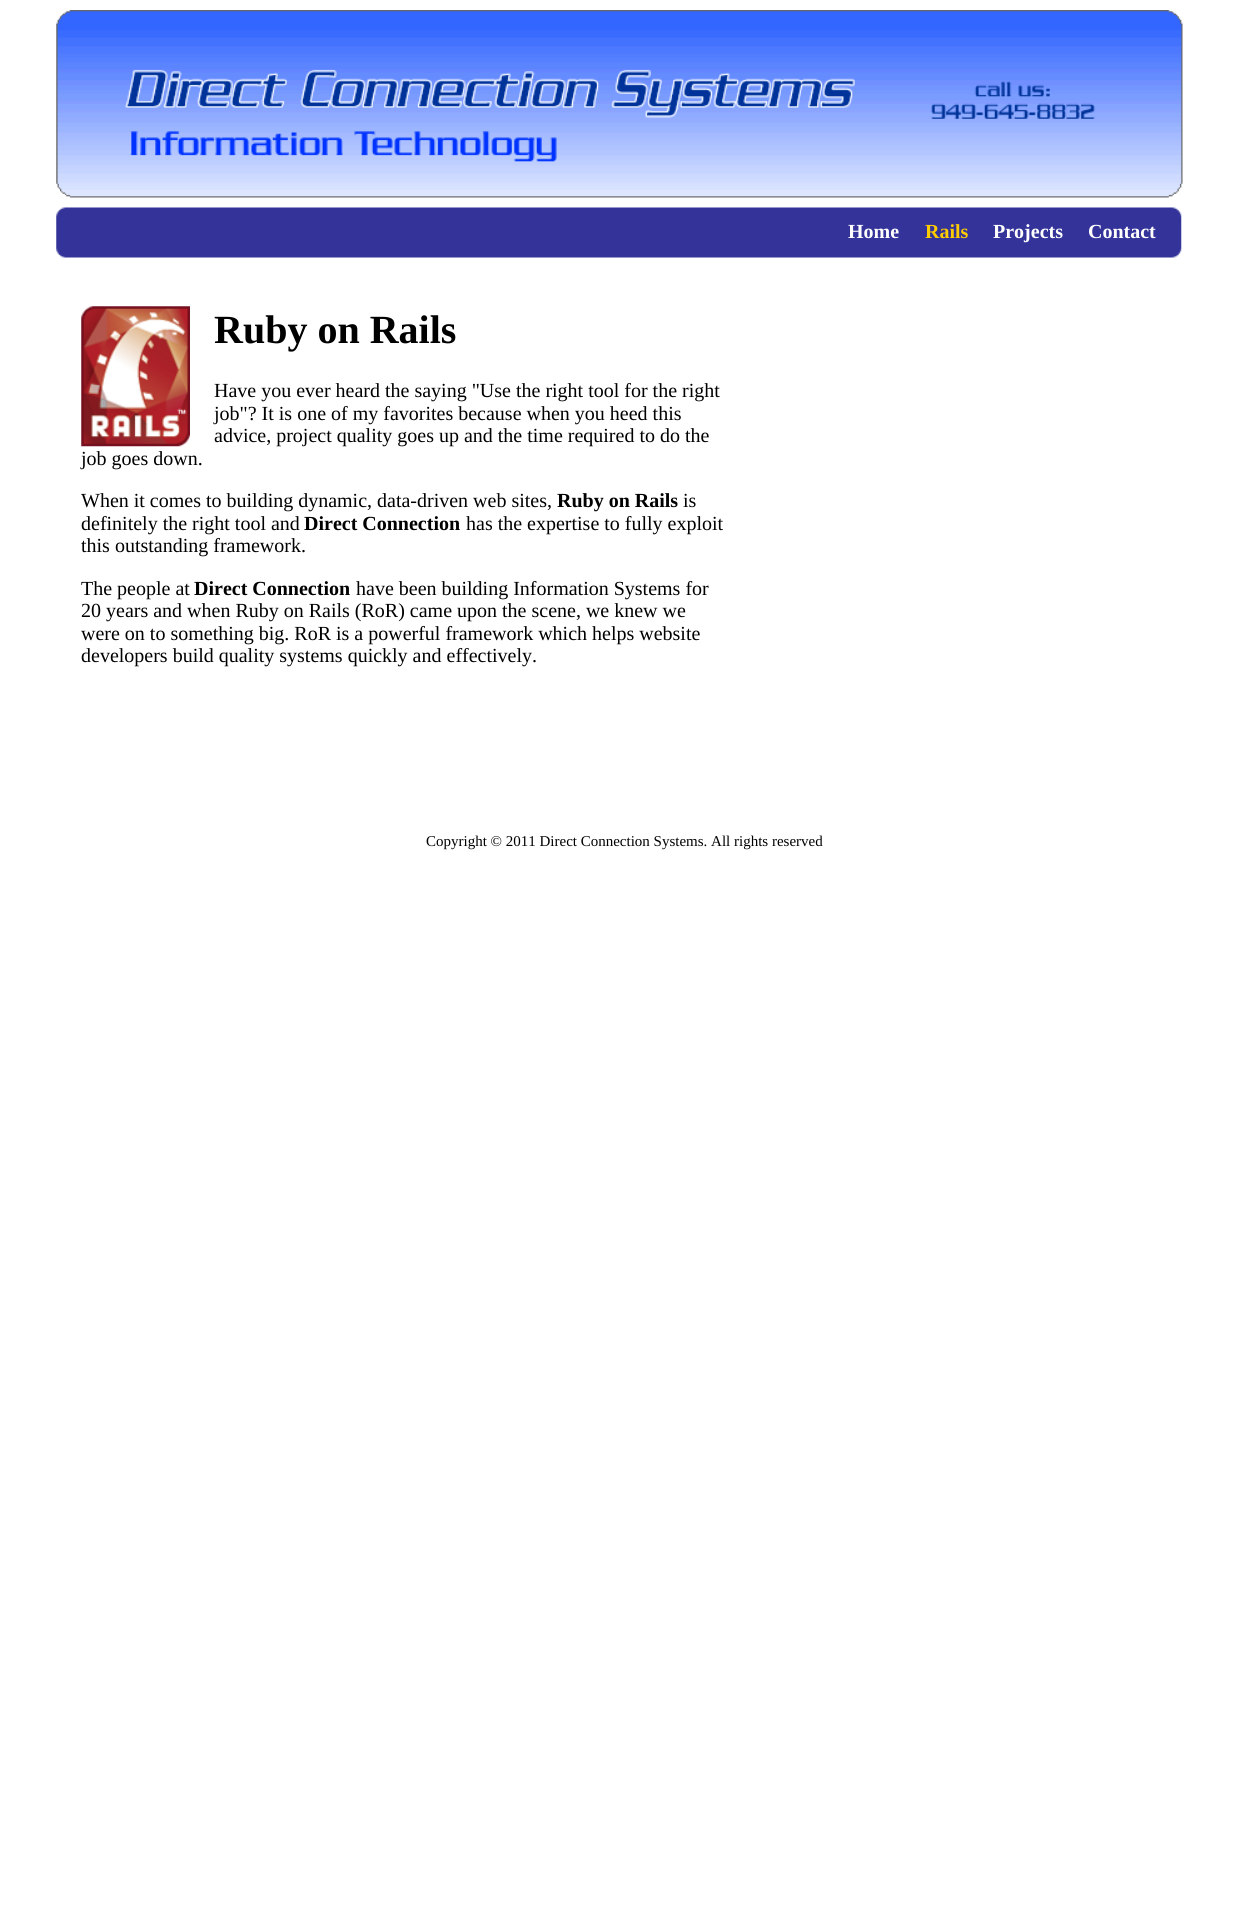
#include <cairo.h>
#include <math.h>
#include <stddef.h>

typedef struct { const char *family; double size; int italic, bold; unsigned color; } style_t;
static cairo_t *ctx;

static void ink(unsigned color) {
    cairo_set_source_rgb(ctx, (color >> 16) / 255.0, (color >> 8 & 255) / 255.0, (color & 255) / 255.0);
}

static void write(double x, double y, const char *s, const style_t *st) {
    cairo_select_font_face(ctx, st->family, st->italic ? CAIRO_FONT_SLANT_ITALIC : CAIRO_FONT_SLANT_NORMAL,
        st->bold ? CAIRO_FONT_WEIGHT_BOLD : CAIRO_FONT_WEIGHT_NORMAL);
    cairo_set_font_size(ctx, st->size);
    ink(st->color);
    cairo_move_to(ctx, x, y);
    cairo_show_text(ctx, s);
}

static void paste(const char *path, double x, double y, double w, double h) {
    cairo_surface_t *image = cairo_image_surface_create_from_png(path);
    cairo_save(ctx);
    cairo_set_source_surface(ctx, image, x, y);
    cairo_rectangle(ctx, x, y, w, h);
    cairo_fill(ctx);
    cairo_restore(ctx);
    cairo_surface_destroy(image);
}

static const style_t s1 = {"Liberation Serif", 20, 0, 1, 0xffffff};
static const style_t s2 = {"Liberation Serif", 20, 0, 1, 0xffcc00};
static const style_t s3 = {"Liberation Serif", 40, 0, 1, 0x000000};
static const style_t s4 = {"Liberation Serif", 20, 0, 0, 0x000000};
static const style_t s5 = {"Liberation Serif", 20, 0, 1, 0x000000};
static const style_t s6 = {"Liberation Serif", 15, 0, 0, 0x000000};

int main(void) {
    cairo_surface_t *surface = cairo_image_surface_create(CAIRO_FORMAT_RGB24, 1248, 1929);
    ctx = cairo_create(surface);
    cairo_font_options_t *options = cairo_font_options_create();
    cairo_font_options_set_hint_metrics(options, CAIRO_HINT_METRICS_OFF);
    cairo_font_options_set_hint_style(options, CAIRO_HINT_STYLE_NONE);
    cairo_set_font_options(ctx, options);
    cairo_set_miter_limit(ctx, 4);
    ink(0xffffff);
    cairo_paint(ctx);
    paste("pic1.png", 56, 10, 1127, 188);
    paste("pic2.png", 56, 207, 1126, 51);
    write(848, 238, "Home", &s1);
    write(925, 238, "Rails", &s2);
    write(993, 238, "Projects", &s1);
    write(1088, 238, "Contact", &s1);
    paste("pic3.png", 81, 306, 109, 141);
    write(214, 343, "Ruby on Rails", &s3);
    write(214, 397, "Have you ever heard the saying \"Use the right tool for the right", &s4);
    write(214, 420, "job\"? It is one of my favorites because when you heed this", &s4);
    write(214, 442, "advice, project quality goes up and the time required to do the", &s4);
    write(81, 465, "job goes down.", &s4);
    write(81, 507, "When it comes to building dynamic, data-driven web sites,", &s4);
    write(557, 507, "Ruby on Rails", &s5);
    write(683, 507, "is", &s4);
    write(81, 530, "definitely the right tool and", &s4);
    write(304, 530, "Direct Connection", &s5);
    write(466, 530, "has the expertise to fully exploit", &s4);
    write(81, 552, "this outstanding framework.", &s4);
    write(81, 595, "The people at", &s4);
    write(194, 595, "Direct Connection", &s5);
    write(356, 595, "have been building Information Systems for", &s4);
    write(81, 617, "20 years and when Ruby on Rails (RoR) came upon the scene, we knew we", &s4);
    write(81, 640, "were on to something big. RoR is a powerful framework which helps website", &s4);
    write(81, 662, "developers build quality systems quickly and effectively.", &s4);
    write(426, 846, "Copyright © 2011 Direct Connection Systems. All rights reserved", &s6);
    cairo_surface_write_to_png(surface, "screenshot.png");
    cairo_font_options_destroy(options);
    cairo_destroy(ctx);
    cairo_surface_destroy(surface);
    return 0;
}
